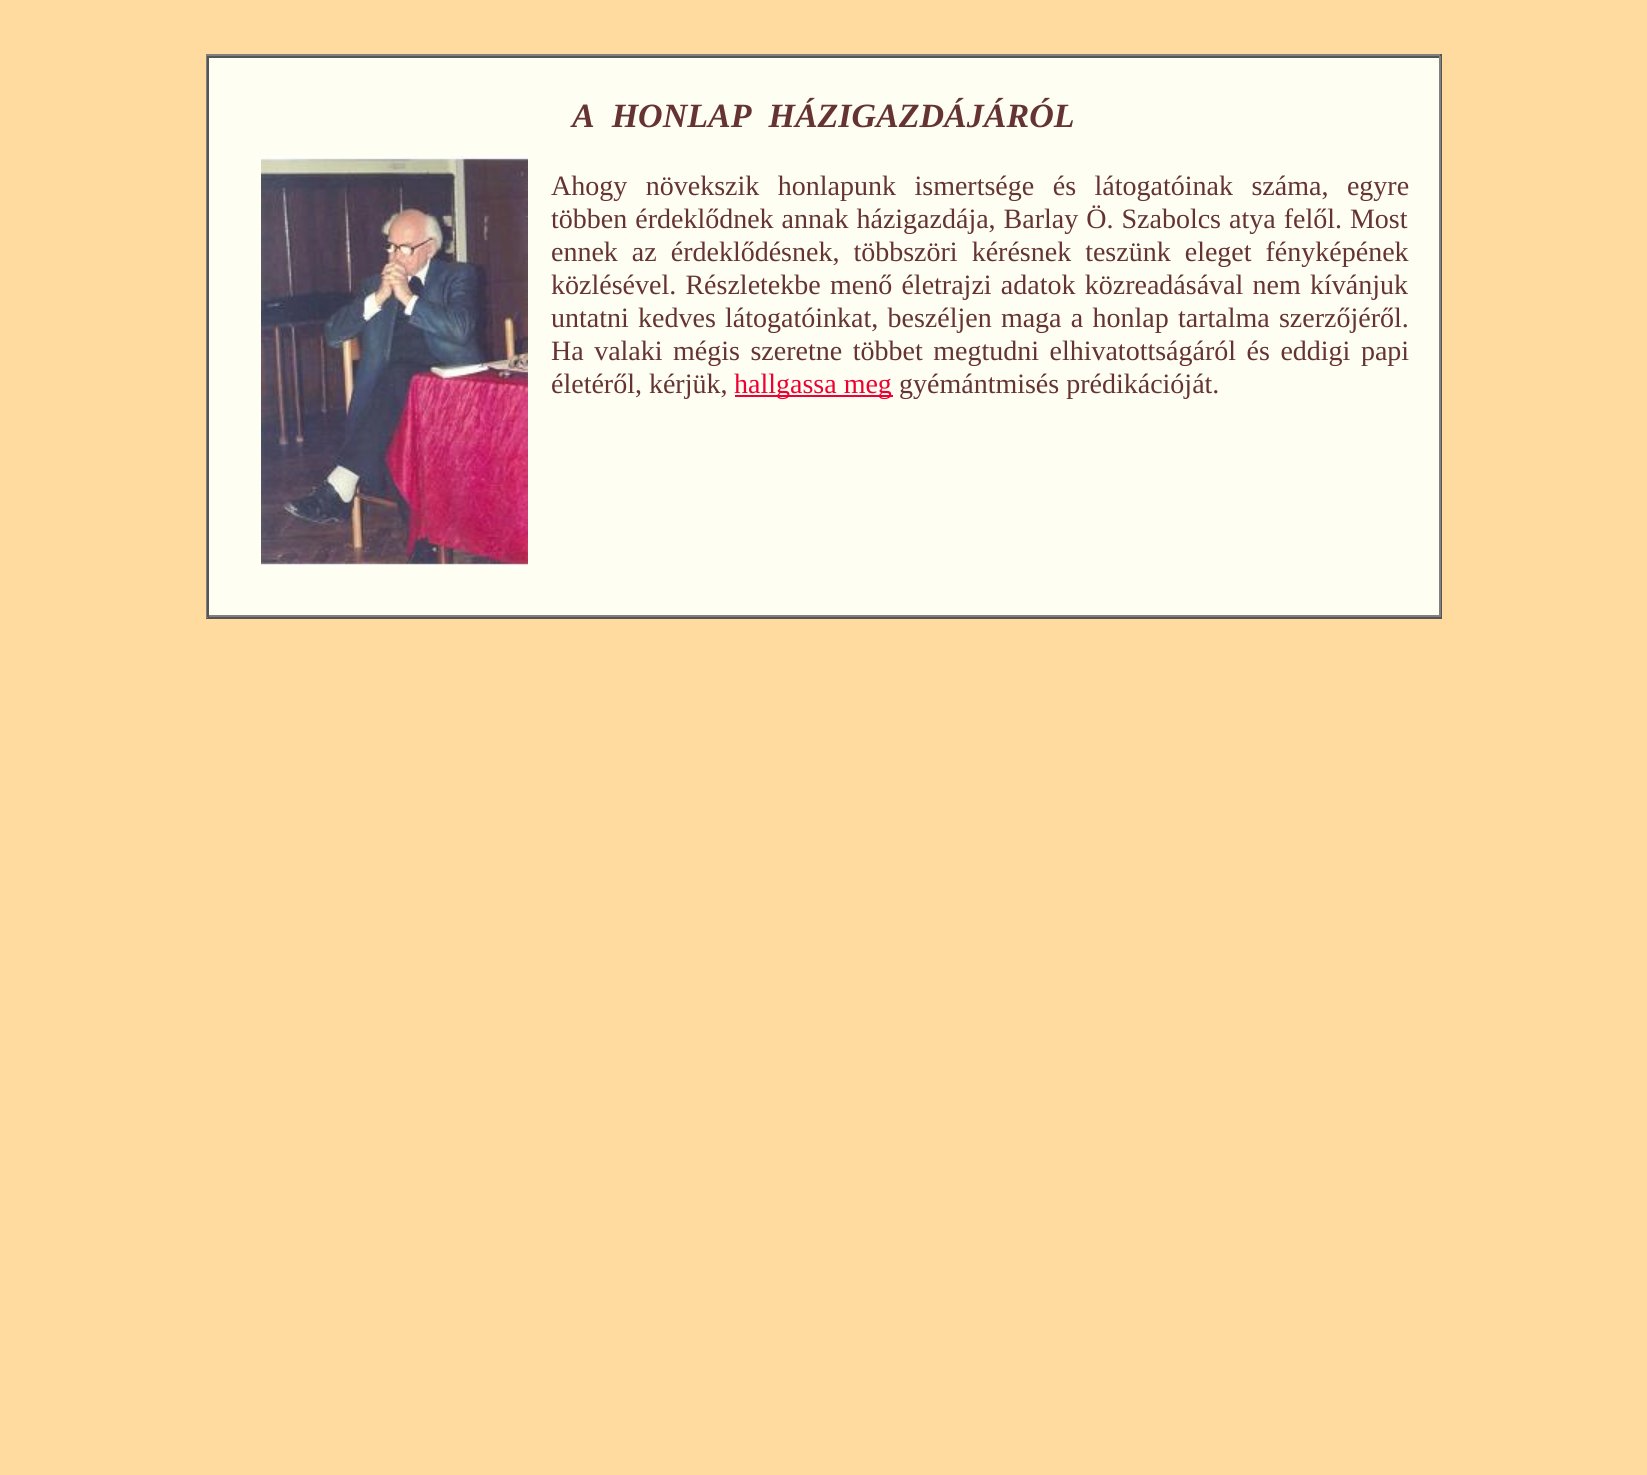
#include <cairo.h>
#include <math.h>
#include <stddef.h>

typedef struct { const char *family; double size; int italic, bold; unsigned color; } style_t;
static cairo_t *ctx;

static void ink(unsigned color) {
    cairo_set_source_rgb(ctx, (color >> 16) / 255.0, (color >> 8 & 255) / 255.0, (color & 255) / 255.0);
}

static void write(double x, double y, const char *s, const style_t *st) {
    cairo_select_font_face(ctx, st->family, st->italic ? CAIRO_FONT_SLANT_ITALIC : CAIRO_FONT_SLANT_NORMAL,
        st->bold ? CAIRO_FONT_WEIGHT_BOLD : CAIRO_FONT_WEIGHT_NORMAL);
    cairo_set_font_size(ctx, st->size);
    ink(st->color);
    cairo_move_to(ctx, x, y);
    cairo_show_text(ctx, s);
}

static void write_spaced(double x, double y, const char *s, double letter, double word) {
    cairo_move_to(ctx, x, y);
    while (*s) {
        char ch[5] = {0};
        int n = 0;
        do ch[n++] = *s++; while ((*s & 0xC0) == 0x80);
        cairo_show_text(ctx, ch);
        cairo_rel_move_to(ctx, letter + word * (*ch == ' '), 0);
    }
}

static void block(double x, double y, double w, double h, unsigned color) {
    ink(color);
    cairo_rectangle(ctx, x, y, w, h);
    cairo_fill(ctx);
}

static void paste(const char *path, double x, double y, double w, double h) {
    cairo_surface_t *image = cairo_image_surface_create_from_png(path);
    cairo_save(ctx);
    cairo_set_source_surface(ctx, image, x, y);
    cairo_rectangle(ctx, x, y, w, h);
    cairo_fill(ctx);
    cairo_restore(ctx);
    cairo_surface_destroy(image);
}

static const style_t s1 = {"Liberation Serif", 34, 1, 1, 0x663333};
static const style_t s2 = {"Liberation Serif", 28, 0, 0, 0x663333};
static const style_t s3 = {"Liberation Serif", 28, 0, 0, 0xee0033};

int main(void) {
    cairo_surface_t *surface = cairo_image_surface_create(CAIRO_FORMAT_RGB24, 1647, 1475);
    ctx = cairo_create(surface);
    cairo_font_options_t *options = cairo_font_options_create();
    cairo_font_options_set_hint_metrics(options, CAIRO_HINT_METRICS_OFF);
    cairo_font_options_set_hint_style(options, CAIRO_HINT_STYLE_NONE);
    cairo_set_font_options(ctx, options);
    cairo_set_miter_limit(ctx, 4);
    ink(0xffdba0);
    cairo_paint(ctx);
    block(206, 54, 1236, 2, 0x808080);
    block(1440, 54, 2, 564, 0x555555);
    block(206, 617, 1236, 2, 0x555555);
    block(206, 54, 2, 564, 0x808080);
    block(209, 58, 1230, 557, 0xfefef2);
    block(207, 56, 1233, 2, 0x555555);
    block(1439, 56, 2, 561, 0x808080);
    block(207, 615, 1233, 2, 0x808080);
    block(207, 56, 2, 561, 0x555555);
    write(572, 127, "A  HONLAP  HÁZIGAZDÁJÁRÓL", &s1);
    paste("pic1.png", 261, 156, 267, 410);
    cairo_select_font_face(ctx, "Liberation Serif", CAIRO_FONT_SLANT_NORMAL, CAIRO_FONT_WEIGHT_NORMAL);
    cairo_set_font_size(ctx, 28);
    write_spaced(551, 195, "Ahogy növekszik honlapunk ismertsége és látogatóinak száma, egyre", 0, 11.5);
    write_spaced(551, 228, "többen érdeklődnek annak házigazdája, Barlay Ö. Szabolcs atya felől. Most", 0, 1);
    write_spaced(551, 261, "ennek az érdeklődésnek, többszöri kérésnek teszünk eleget fényképének", 0, 7);
    write_spaced(551, 294, "közlésével. Részletekbe menő életrajzi adatok közreadásával nem kívánjuk", 0, 2.25);
    write_spaced(551, 327, "untatni kedves látogatóinkat, beszéljen maga a honlap tartalma szerzőjéről.", 0, 2.25);
    write_spaced(551, 360, "Ha valaki mégis szeretne többet megtudni elhivatottságáról és eddigi papi", 0, 3.5);
    write(551, 393, "életéről, kérjük,", &s2);
    block(735, 395, 158, 2, 0xee0033);
    write(734, 393, "hallgassa meg", &s3);
    write(899, 393, "gyémántmisés prédikációját.", &s2);
    cairo_surface_write_to_png(surface, "screenshot.png");
    cairo_font_options_destroy(options);
    cairo_destroy(ctx);
    cairo_surface_destroy(surface);
    return 0;
}
